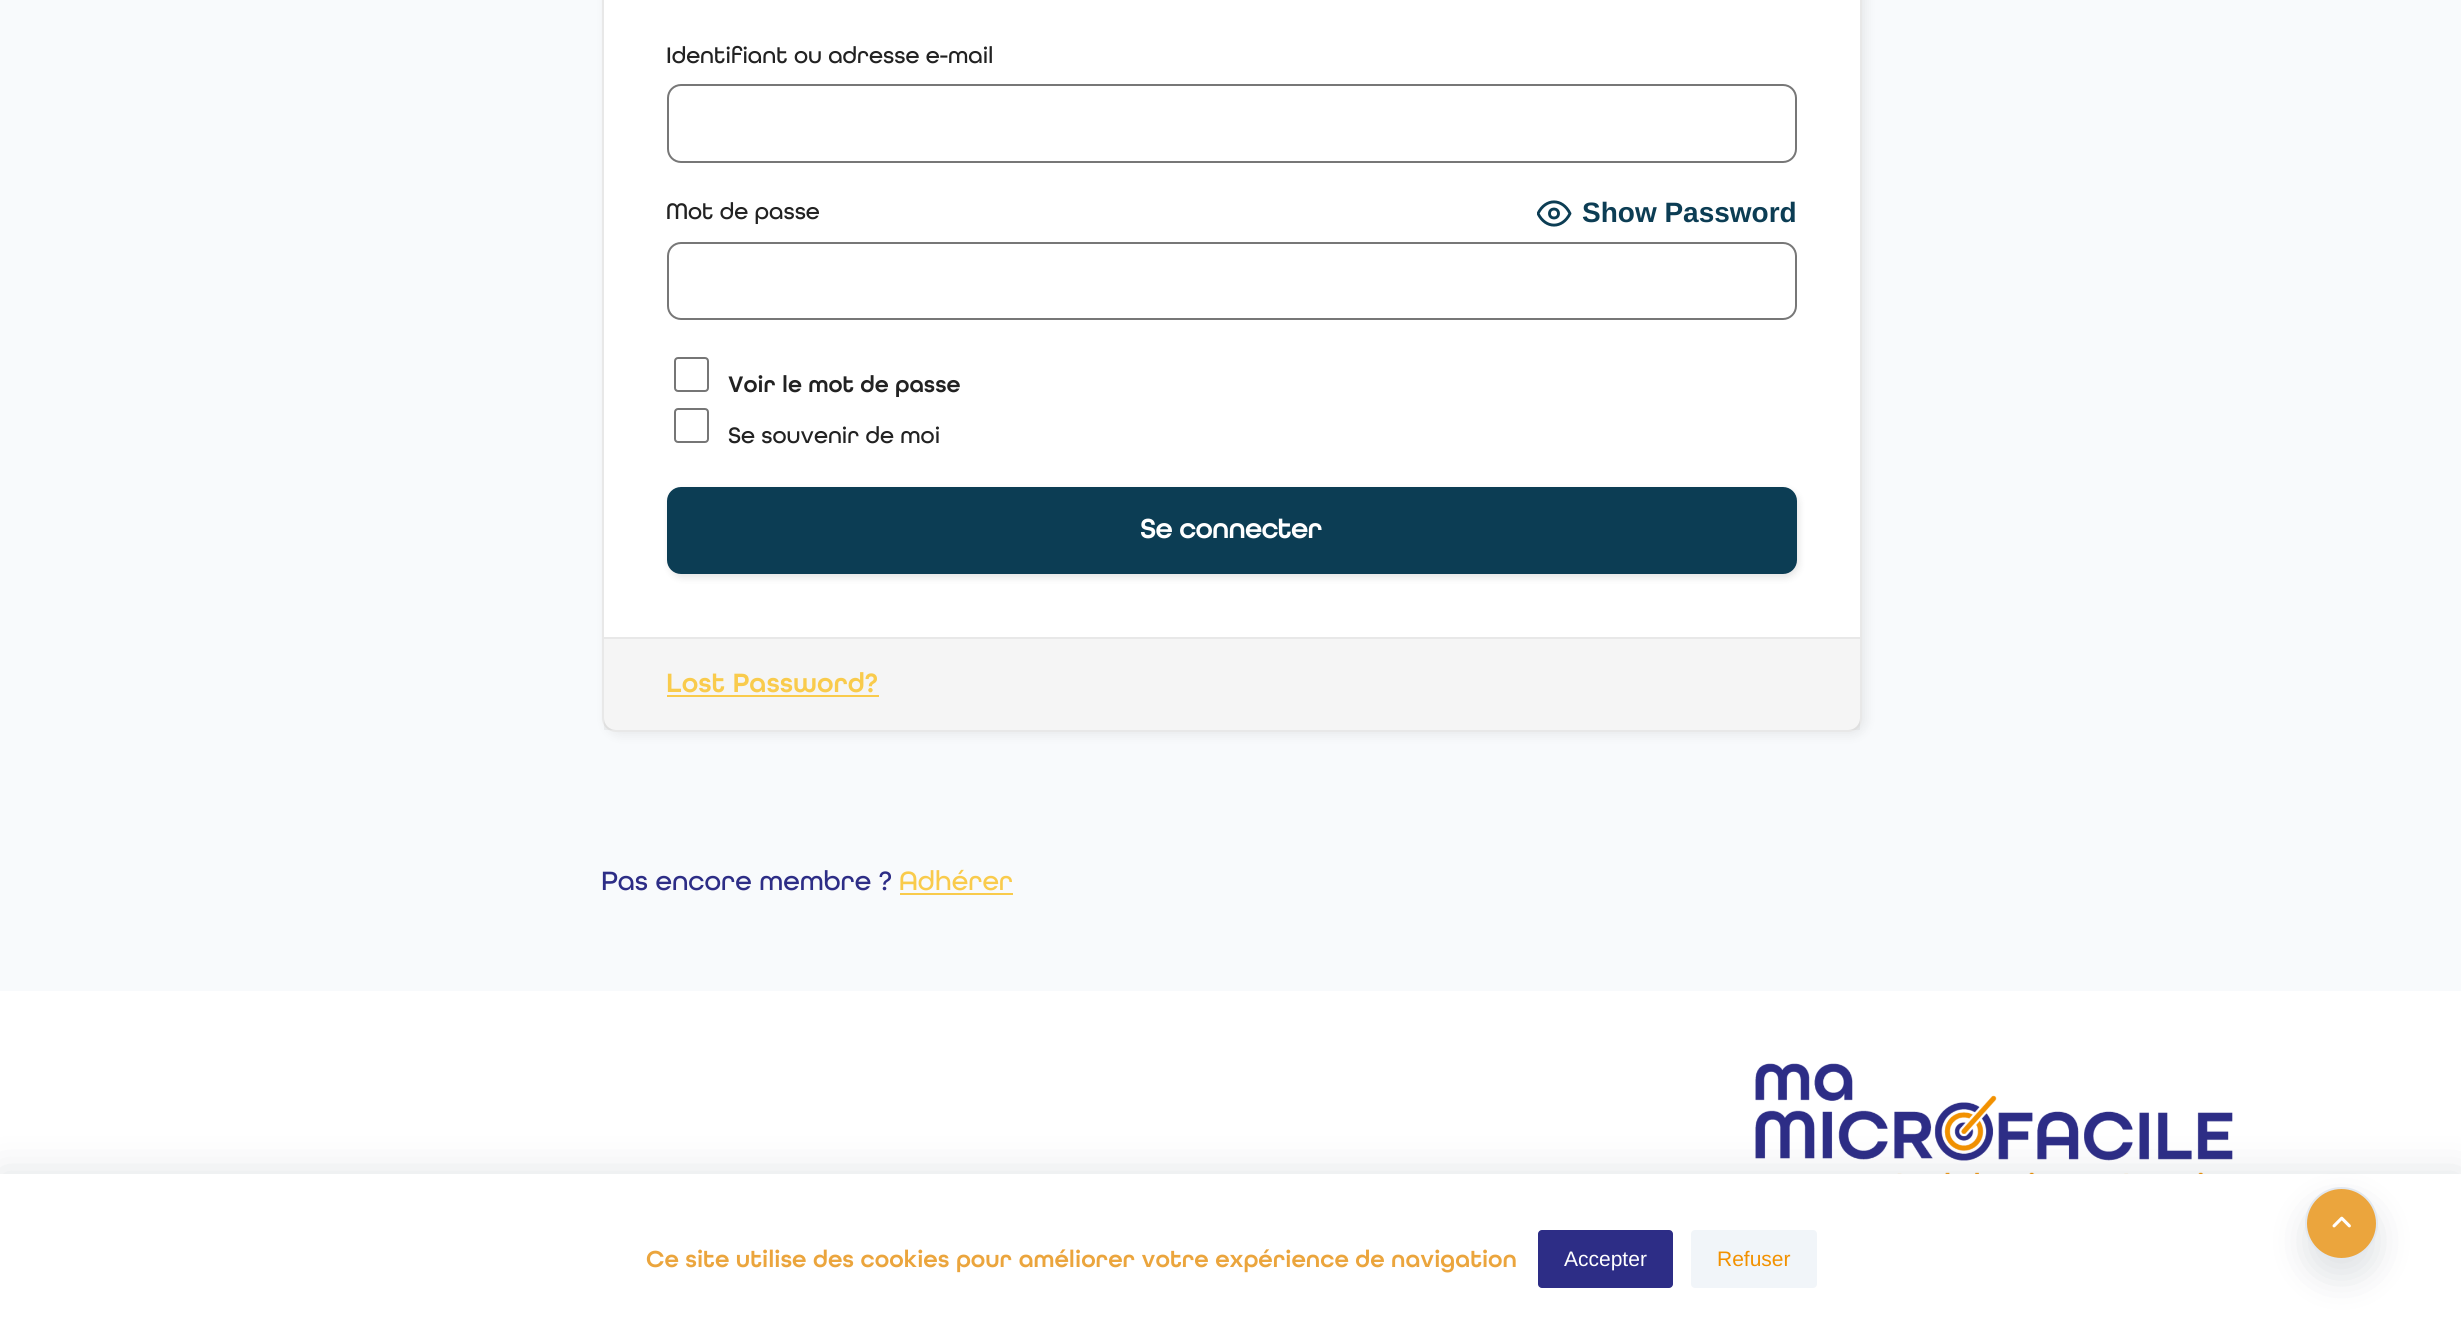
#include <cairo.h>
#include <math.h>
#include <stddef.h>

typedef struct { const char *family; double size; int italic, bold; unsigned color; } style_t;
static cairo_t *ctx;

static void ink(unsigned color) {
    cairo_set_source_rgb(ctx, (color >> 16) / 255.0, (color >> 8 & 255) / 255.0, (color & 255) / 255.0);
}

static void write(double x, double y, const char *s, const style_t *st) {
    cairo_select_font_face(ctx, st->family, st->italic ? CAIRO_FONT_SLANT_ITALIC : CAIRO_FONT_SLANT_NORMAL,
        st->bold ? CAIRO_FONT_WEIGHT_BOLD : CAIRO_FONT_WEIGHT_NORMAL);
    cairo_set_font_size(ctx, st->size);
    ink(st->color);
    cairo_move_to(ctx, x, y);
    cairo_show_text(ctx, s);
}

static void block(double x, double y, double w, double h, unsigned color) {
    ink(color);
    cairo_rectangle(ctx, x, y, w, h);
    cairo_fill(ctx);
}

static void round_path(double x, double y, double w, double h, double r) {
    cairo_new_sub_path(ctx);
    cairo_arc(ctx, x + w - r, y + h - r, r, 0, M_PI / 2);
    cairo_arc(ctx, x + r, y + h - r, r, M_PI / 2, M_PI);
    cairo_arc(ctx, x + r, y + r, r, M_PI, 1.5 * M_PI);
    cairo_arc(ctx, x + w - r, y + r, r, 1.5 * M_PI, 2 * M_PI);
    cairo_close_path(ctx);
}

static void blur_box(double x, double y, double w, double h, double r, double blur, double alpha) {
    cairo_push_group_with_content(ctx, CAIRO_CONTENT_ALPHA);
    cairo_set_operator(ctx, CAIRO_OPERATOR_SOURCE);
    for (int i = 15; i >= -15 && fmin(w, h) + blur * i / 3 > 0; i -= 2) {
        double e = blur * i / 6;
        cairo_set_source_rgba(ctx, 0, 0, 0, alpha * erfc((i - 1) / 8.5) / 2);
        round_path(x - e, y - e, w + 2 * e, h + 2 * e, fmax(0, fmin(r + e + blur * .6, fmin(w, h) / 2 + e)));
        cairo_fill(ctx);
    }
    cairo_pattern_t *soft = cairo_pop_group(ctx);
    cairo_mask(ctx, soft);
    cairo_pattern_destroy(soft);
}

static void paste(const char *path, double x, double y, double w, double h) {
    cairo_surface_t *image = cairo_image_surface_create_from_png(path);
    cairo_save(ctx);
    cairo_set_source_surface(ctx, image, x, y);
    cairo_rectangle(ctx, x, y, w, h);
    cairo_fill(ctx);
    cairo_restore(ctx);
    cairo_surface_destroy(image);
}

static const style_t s1 = {"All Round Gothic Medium", 23.75, 0, 0, 0x222222};
static const style_t s2 = {"Liberation Sans", 28, 0, 1, 0x0c3d54};
static const style_t s3 = {"All Round Gothic SemiBold", 23.75, 0, 0, 0x222222};
static const style_t s4 = {"All Round Gothic", 28, 0, 1, 0xffffff};
static const style_t s5 = {"All Round Gothic SemiBold", 28, 0, 0, 0xf9cb4c};
static const style_t s6 = {"All Round Gothic Medium", 28, 0, 0, 0x2d2d86};
static const style_t s7 = {"All Round Gothic Medium", 28, 0, 0, 0xf9cb4c};
static const style_t s8 = {"All Round Gothic SemiBold", 24.5, 0, 0, 0xeba53d};
static const style_t s9 = {"Liberation Sans", 21, 0, 0, 0xffffff};
static const style_t s10 = {"Liberation Sans", 21, 0, 0, 0xf29100};

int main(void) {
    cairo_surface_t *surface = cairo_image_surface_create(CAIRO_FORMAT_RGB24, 2461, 1343);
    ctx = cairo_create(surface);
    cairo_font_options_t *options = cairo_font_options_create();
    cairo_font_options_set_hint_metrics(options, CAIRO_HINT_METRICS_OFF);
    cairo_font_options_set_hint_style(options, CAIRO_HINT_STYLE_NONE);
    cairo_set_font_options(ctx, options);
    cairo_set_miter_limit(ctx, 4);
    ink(0xf8fafc);
    cairo_paint(ctx);
    ink(0x000000);
    blur_box(606, -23, 1260, 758, 14, 6, 0.07);
    ink(0xffffff);
    round_path(603, -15, 1258, 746, 13);
    cairo_fill_preserve(ctx);
    ink(0xe8e8e8);
    cairo_stroke(ctx);
    write(666, 63, "Identifiant ou adresse e-mail", &s1);
    round_path(668, 85, 1128, 77, 13);
    ink(0x777777);
    cairo_stroke(ctx);
    write(666, 219, "Mot de passe", &s1);
    cairo_save(ctx);
    cairo_rectangle(ctx, 1537, 196, 35, 35);
    cairo_clip(ctx);
    cairo_new_path(ctx);
    cairo_move_to(ctx, 1538, 213.5);
    cairo_curve_to(ctx, 1545.5, 198, 1562.5, 198, 1570, 213.5);
    cairo_curve_to(ctx, 1562.5, 229, 1545.5, 229, 1538, 213.5);
    cairo_close_path(ctx);
    ink(0x0c3d54);
    cairo_set_line_width(ctx, 2.9);
    cairo_set_line_cap(ctx, CAIRO_LINE_CAP_ROUND);
    cairo_set_line_join(ctx, CAIRO_LINE_JOIN_ROUND);
    cairo_stroke(ctx);
    cairo_restore(ctx);
    cairo_arc(ctx, 1554, 213.5, 4.5, 0, 2 * M_PI);
    ink(0x0c3d54);
    cairo_set_line_width(ctx, 2.9);
    cairo_stroke(ctx);
    write(1582, 222, "Show Password", &s2);
    round_path(668, 243, 1128, 76, 13);
    ink(0x777777);
    cairo_set_line_width(ctx, 2);
    cairo_stroke(ctx);
    round_path(675, 358, 33, 33, 3);
    ink(0x767676);
    cairo_stroke(ctx);
    write(728, 392, "Voir le mot de passe", &s3);
    round_path(675, 409, 33, 33, 3);
    ink(0x767676);
    cairo_stroke(ctx);
    write(728, 443, "Se souvenir de moi", &s1);
    ink(0x000000);
    blur_box(669, 490, 1130, 88, 14, 3.5, 0.1);
    ink(0x0c3d54);
    round_path(668, 488, 1128, 85, 13);
    cairo_fill_preserve(ctx);
    cairo_stroke(ctx);
    write(1140, 538, "Se connecter", &s4);
    cairo_set_source_rgba(ctx, 0, 0, 0, 0.04);
    cairo_rectangle(ctx, 604, 639, 1256, 91);
    cairo_fill(ctx);
    block(604, 637, 1256, 2, 0xe8e8e8);
    write(666, 692, "Lost Password?", &s5);
    block(667, 695, 212, 2, 0xf9cb4c);
    write(601, 890, "Pas encore membre ?", &s6);
    write(899, 890, "Adhérer", &s7);
    block(900, 893, 113, 2, 0xf9cb4c);
    block(0, 991, 2461, 183, 0xffffff);
    paste("pic1.png", 1755, 1063, 478, 111);
    ink(0x2c3e50);
    blur_box(0, 1174, 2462, 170, 0, 21, 0.15);
    block(0, 1174, 2461, 169, 0xffffff);
    write(646, 1267, "Ce site utilise des cookies pour améliorer votre expérience de navigation", &s8);
    ink(0x2d2d86);
    round_path(1538, 1230, 135, 58, 4);
    cairo_fill(ctx);
    write(1564, 1266, "Accepter", &s9);
    ink(0xf1f5f9);
    round_path(1691, 1230, 126, 58, 4);
    cairo_fill(ctx);
    write(1717, 1266, "Refuser", &s10);
    ink(0x2c3e50);
    blur_box(2305, 1204, 73, 74, 36.5, 17.5, 0.15);
    ink(0xeba53d);
    cairo_arc(ctx, 2341.5, 1223.5, 35.5, 0, 2 * M_PI);
    cairo_fill_preserve(ctx);
    ink(0xe2e8f0);
    cairo_stroke(ctx);
    paste("pic2.png", 2332, 1216, 19, 12);
    cairo_surface_write_to_png(surface, "screenshot.png");
    cairo_font_options_destroy(options);
    cairo_destroy(ctx);
    cairo_surface_destroy(surface);
    return 0;
}
